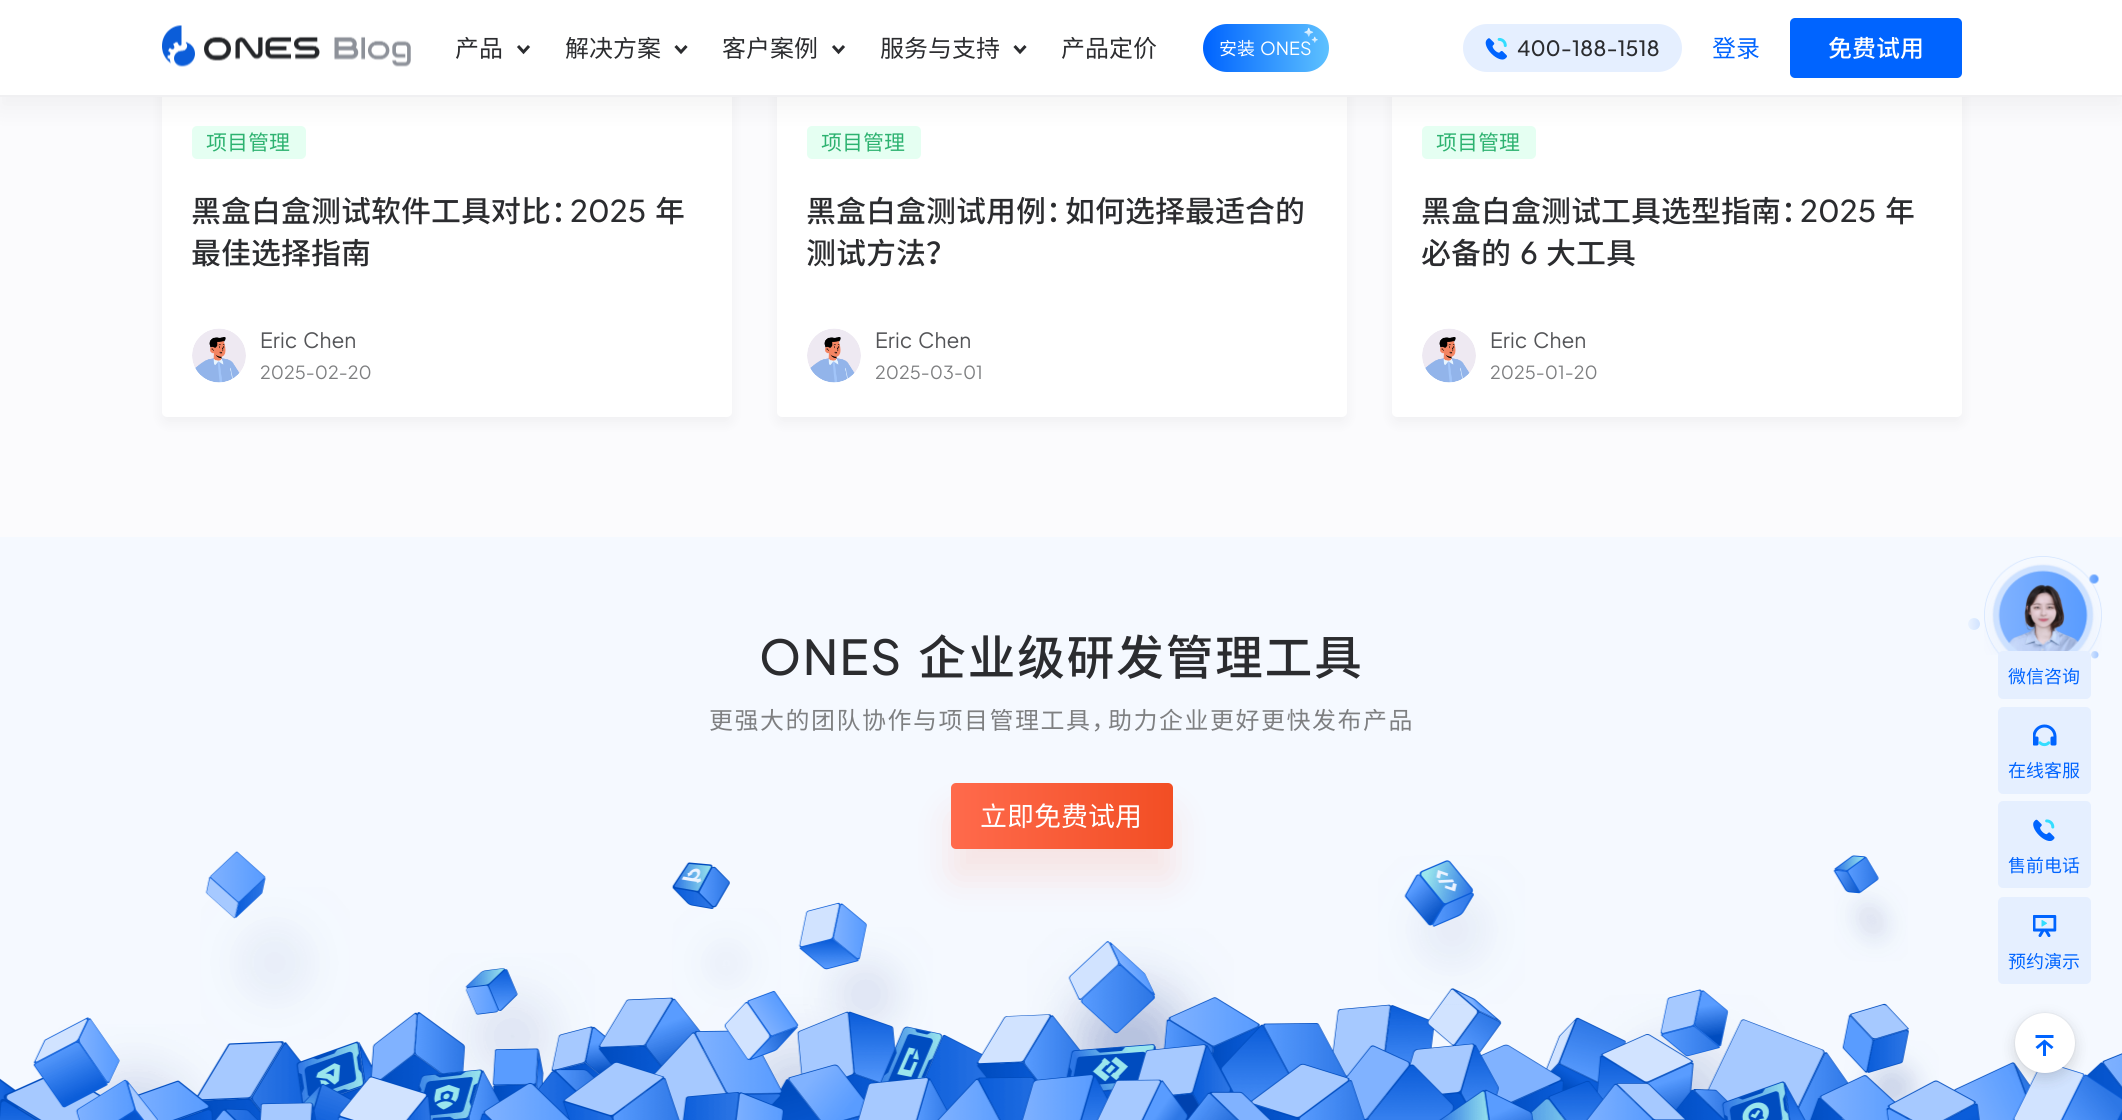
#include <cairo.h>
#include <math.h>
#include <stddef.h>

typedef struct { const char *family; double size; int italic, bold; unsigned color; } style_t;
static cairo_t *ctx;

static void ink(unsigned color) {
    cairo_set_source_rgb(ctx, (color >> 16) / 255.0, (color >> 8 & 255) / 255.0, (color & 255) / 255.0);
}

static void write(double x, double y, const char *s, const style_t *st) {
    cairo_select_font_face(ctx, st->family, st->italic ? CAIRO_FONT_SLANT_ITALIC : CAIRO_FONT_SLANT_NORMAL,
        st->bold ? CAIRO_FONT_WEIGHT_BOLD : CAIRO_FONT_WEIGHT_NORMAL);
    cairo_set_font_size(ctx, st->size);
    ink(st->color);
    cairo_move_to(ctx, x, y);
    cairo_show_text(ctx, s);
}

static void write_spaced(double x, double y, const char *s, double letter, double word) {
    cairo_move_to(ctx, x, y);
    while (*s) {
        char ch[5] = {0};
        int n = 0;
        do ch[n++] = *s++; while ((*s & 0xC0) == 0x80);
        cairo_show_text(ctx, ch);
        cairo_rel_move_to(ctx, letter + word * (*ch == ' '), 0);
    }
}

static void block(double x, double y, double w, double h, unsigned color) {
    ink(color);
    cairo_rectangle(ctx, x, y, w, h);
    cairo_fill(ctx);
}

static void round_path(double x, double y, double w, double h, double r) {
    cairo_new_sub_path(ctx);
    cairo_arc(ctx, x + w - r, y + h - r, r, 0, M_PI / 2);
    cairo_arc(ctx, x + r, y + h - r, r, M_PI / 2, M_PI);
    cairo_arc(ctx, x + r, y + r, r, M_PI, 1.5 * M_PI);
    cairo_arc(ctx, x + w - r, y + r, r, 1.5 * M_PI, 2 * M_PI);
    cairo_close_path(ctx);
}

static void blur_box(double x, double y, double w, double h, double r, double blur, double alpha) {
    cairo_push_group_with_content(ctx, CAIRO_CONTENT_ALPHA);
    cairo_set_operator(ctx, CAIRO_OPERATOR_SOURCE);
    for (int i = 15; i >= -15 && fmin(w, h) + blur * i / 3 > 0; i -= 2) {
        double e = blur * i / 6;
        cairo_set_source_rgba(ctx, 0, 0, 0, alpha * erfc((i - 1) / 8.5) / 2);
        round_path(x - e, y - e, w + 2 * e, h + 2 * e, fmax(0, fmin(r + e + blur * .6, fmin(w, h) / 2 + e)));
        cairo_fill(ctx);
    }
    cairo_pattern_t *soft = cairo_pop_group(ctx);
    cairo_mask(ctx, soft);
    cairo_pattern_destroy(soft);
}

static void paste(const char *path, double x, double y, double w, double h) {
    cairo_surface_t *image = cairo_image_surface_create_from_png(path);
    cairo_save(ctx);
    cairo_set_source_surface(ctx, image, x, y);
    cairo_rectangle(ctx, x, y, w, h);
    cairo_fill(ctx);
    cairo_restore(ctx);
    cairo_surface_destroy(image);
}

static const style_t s1 = {"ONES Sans", 24, 0, 0, 0x2b2c2f};
static const style_t s2 = {"ONES Sans", 18, 0, 0, 0xffffff};
static const style_t s3 = {"ONES Sans Medium", 21, 0, 0, 0x2b2c2f};
static const style_t s4 = {"ONES Sans", 24, 0, 0, 0x0064ff};
static const style_t s5 = {"ONES Sans Medium", 24, 0, 0, 0xffffff};
static const style_t s6 = {"ONES Sans", 21, 0, 0, 0x2db270};
static const style_t s7 = {"ONES Sans Medium", 30, 0, 0, 0x2b2c2f};
static const style_t s8 = {"ONES Sans", 21, 0, 0, 0x545558};
static const style_t s9 = {"ONES Sans", 18, 0, 0, 0x7e7f81};
static const style_t s10 = {"ONES Sans", 27, 0, 0, 0xffffff};
static const style_t s11 = {"ONES Sans", 18, 0, 0, 0x0064ff};

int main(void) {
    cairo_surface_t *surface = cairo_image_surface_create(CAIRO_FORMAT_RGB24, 2122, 1120);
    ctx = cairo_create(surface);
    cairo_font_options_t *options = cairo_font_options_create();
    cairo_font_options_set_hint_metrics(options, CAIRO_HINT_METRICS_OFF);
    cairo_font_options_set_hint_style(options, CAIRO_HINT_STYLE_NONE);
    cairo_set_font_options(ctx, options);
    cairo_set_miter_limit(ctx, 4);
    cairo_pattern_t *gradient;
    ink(0xfbfbfd);
    cairo_paint(ctx);
    ink(0x16171a);
    blur_box(162, -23, 570, 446, 5, 6, 0.05);
    ink(0xffffff);
    round_path(162, -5, 570, 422, 5);
    cairo_fill(ctx);
    ink(0xe5fff2);
    round_path(192, 126, 114, 33, 5);
    cairo_fill(ctx);
    ink(0x16171a);
    blur_box(777, -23, 570, 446, 5, 6, 0.05);
    ink(0xffffff);
    round_path(777, -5, 570, 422, 5);
    cairo_fill(ctx);
    ink(0xe5fff2);
    round_path(807, 126, 114, 33, 5);
    cairo_fill(ctx);
    ink(0x16171a);
    blur_box(1392, -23, 570, 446, 5, 6, 0.05);
    ink(0xffffff);
    round_path(1392, -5, 570, 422, 5);
    cairo_fill(ctx);
    ink(0xe5fff2);
    round_path(1422, 126, 114, 33, 5);
    cairo_fill(ctx);
    ink(0x16171a);
    blur_box(0, 12, 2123, 96, 0, 12, 0.05);
    block(0, 0, 2122, 95, 0xffffff);
    block(0, 95, 2122, 2, 0xf0f0f2);
    paste("pic1.png", 162, 25, 249, 42);
    write(455, 57, "产品", &s1);
    cairo_new_path(ctx);
    cairo_move_to(ctx, 518, 46);
    cairo_line_to(ctx, 523.5, 52);
    cairo_line_to(ctx, 529, 46);
    cairo_set_line_width(ctx, 3);
    cairo_stroke(ctx);
    write(565, 57, "解决方案", &s1);
    cairo_new_path(ctx);
    cairo_move_to(ctx, 675.5, 46);
    cairo_line_to(ctx, 681, 52);
    cairo_line_to(ctx, 686.5, 46);
    cairo_stroke(ctx);
    write(722, 57, "客户案例", &s1);
    cairo_new_path(ctx);
    cairo_move_to(ctx, 833, 46);
    cairo_line_to(ctx, 838.5, 52);
    cairo_line_to(ctx, 844, 46);
    cairo_stroke(ctx);
    write(880, 57, "服务与支持", &s1);
    cairo_new_path(ctx);
    cairo_move_to(ctx, 1014.5, 46);
    cairo_line_to(ctx, 1020, 52);
    cairo_line_to(ctx, 1025.5, 46);
    cairo_stroke(ctx);
    write(1061, 57, "产品定价", &s1);
    gradient = cairo_pattern_create_linear(1370, 48, 1203, 48);
    cairo_pattern_add_color_stop_rgba(gradient, 0, 0.49, 0.878, 1, 1);
    cairo_pattern_add_color_stop_rgba(gradient, 0.99, 0, 0.392, 1, 1);
    cairo_set_source(ctx, gradient);
    cairo_pattern_destroy(gradient);
    round_path(1203, 24, 126, 48, 24);
    cairo_fill(ctx);
    write(1260, 55, "ONES", &s2);
    paste("pic2.png", 1304, 27, 14, 16);
    write(1219, 55, "安装", &s2);
    ink(0xe5efff);
    round_path(1463, 24, 219, 48, 24);
    cairo_fill(ctx);
    paste("pic3.png", 1485, 37, 22, 23);
    write(1517, 56, "400-188-1518", &s3);
    write(1712, 57, "登录", &s4);
    round_path(1790, 18, 172, 60, 5);
    cairo_fill(ctx);
    write(1828, 57, "免费试用", &s5);
    write(206, 150, "项目管理", &s6);
    write(191, 222, "黑盒白盒测试软件工具对比：2025", &s7);
    write(655, 222, "年", &s7);
    write(191, 264, "最佳选择指南", &s7);
    paste("pic4.png", 192, 328, 54, 55);
    write(260, 348, "Eric", &s8);
    write(303, 348, "Chen", &s8);
    write(260, 379, "2025-02-20", &s9);
    write(821, 150, "项目管理", &s6);
    write(806, 222, "黑盒白盒测试用例：如何选择最适合的", &s7);
    write(806, 264, "测试方法？", &s7);
    paste("pic5.png", 807, 328, 54, 55);
    write(875, 348, "Eric", &s8);
    write(918, 348, "Chen", &s8);
    write(875, 379, "2025-03-01", &s9);
    write(1436, 150, "项目管理", &s6);
    write(1421, 222, "黑盒白盒测试工具选型指南：2025", &s7);
    write(1885, 222, "年", &s7);
    write(1421, 264, "必备的", &s7);
    write(1520, 264, "6", &s7);
    write(1546, 264, "大工具", &s7);
    paste("pic4.png", 1422, 328, 54, 55);
    write(1490, 348, "Eric", &s8);
    write(1533, 348, "Chen", &s8);
    write(1490, 379, "2025-01-20", &s9);
    block(0, 537, 2122, 583, 0xf5f9ff);
    paste("pic6.png", 0, 851, 2122, 269);
    cairo_select_font_face(ctx, "ONES Sans Medium", CAIRO_FONT_SLANT_NORMAL, CAIRO_FONT_WEIGHT_NORMAL);
    cairo_set_font_size(ctx, 48);
    ink(0x2b2c2f);
    write_spaced(759, 675, "ONES", 1.5, 0);
    write_spaced(918, 675, "企业级研发管理工具", 1.5, 0);
    cairo_select_font_face(ctx, "ONES Sans", CAIRO_FONT_SLANT_NORMAL, CAIRO_FONT_WEIGHT_NORMAL);
    cairo_set_font_size(ctx, 24);
    ink(0x7e7f81);
    write_spaced(709, 729, "更强大的团队协作与项目管理工具，助力企业更好更快发布产品", 1.5, 0);
    ink(0xff694a);
    blur_box(951, 813, 222, 66, 5, 18, 0.15);
    gradient = cairo_pattern_create_linear(951, 816, 1173, 816);
    cairo_pattern_add_color_stop_rgba(gradient, 0, 1, 0.416, 0.298, 1);
    cairo_pattern_add_color_stop_rgba(gradient, 1, 0.949, 0.306, 0.141, 1);
    cairo_set_source(ctx, gradient);
    cairo_pattern_destroy(gradient);
    round_path(951, 783, 222, 66, 5);
    cairo_fill(ctx);
    write(980, 826, "立即免费试用", &s10);
    paste("pic7.png", 1984, 556, 118, 99);
    paste("pic8.png", 2089, 574, 10, 10);
    paste("pic9.png", 1968, 618, 12, 12);
    paste("pic10.png", 2091, 651, 8, 8);
    ink(0xe5efff);
    round_path(1999, 652, 91, 46, 4);
    cairo_fill_preserve(ctx);
    cairo_set_line_width(ctx, 2);
    cairo_stroke(ctx);
    write(2008, 683, "微信咨询", &s11);
    ink(0xe5efff);
    round_path(1999, 708, 91, 85, 4);
    cairo_fill_preserve(ctx);
    cairo_stroke(ctx);
    paste("pic11.png", 2033, 724, 24, 23);
    write(2008, 777, "在线客服", &s11);
    ink(0xe5efff);
    round_path(1999, 802, 91, 85, 4);
    cairo_fill_preserve(ctx);
    cairo_stroke(ctx);
    paste("pic12.png", 2033, 819, 22, 22);
    write(2008, 872, "售前电话", &s11);
    ink(0xe5efff);
    round_path(1999, 898, 91, 85, 4);
    cairo_fill_preserve(ctx);
    cairo_stroke(ctx);
    paste("pic13.png", 2033, 915, 24, 22);
    write(2008, 968, "预约演示", &s11);
    ink(0x000000);
    blur_box(2015, 1013, 60, 60, 30, 1, 0.1);
    ink(0x303030);
    blur_box(2015, 1019, 60, 60, 30, 6, 0.1);
    blur_box(2015, 1017, 60, 60, 30, 9, 0.08);
    ink(0xffffff);
    cairo_arc(ctx, 2045, 1043, 30, 0, 2 * M_PI);
    cairo_fill(ctx);
    paste("pic14.png", 2035, 1035, 19, 21);
    cairo_surface_write_to_png(surface, "screenshot.png");
    cairo_font_options_destroy(options);
    cairo_destroy(ctx);
    cairo_surface_destroy(surface);
    return 0;
}
